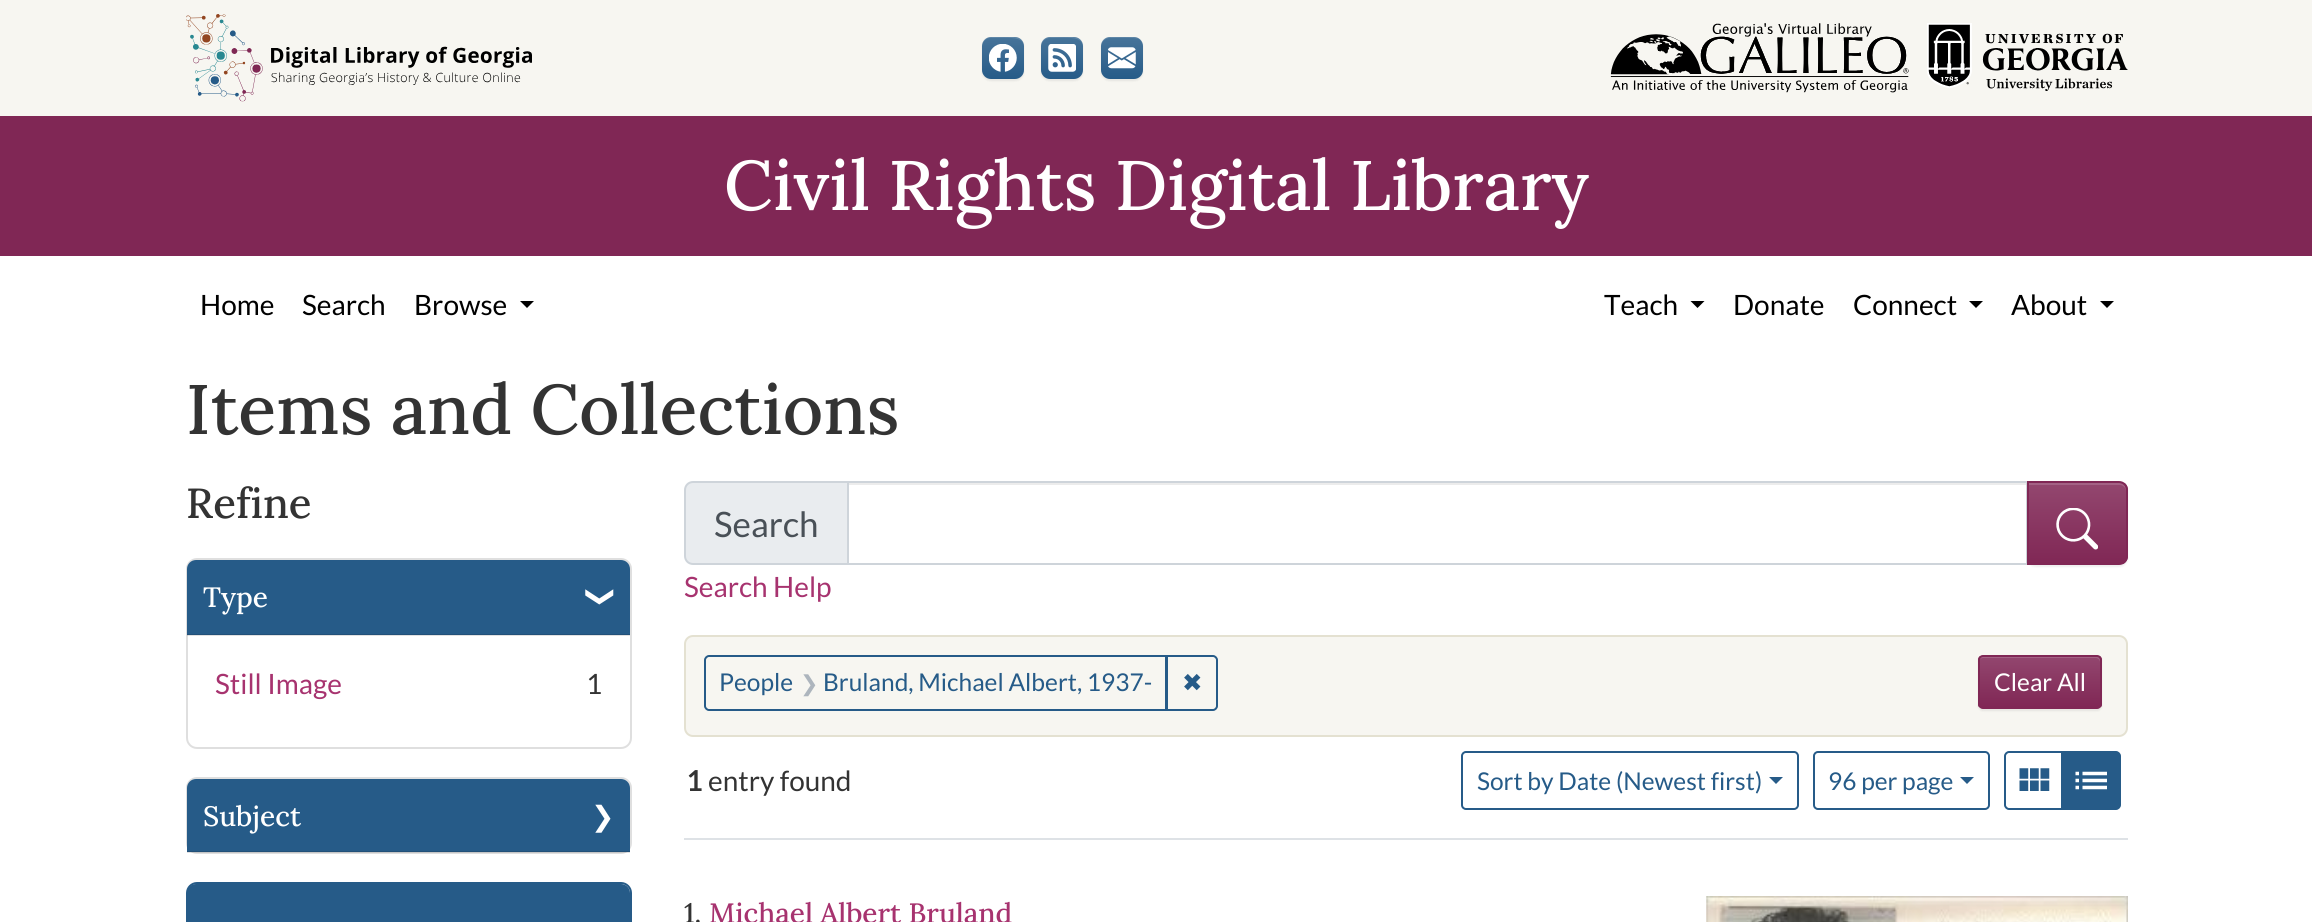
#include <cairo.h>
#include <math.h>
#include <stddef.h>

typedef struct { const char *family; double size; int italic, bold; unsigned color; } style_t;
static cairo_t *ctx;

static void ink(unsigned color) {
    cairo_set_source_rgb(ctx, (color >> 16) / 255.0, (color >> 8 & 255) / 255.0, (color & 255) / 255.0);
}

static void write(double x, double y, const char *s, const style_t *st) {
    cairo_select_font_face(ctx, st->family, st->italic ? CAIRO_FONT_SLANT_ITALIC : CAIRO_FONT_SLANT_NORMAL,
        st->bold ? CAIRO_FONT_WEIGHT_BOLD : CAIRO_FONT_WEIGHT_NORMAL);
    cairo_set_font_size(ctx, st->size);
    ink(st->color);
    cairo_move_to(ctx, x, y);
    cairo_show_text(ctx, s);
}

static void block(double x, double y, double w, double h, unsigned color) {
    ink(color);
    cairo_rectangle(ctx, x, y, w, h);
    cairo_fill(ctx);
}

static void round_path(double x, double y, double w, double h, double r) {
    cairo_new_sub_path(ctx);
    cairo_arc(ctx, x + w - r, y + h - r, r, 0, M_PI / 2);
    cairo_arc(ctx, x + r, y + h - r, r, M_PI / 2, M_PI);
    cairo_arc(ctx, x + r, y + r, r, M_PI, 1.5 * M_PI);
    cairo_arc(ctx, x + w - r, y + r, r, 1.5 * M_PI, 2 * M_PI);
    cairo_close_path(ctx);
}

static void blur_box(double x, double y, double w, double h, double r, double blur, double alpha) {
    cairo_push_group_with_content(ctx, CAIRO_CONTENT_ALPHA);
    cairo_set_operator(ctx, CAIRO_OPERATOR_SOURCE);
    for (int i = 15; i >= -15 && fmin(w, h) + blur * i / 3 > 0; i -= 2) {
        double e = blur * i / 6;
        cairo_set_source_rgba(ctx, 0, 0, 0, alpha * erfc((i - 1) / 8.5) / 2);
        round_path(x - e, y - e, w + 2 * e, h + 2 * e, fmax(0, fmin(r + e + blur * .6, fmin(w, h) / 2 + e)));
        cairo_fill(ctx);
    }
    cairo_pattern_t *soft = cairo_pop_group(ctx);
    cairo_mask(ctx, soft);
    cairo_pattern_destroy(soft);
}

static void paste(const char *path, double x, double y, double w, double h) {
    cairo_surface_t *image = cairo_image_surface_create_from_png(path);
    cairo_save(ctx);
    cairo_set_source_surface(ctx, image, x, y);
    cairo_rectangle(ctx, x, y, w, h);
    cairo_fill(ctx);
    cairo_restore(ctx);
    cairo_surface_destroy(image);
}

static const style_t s1 = {"Lora Medium", 70, 0, 0, 0xffffff};
static const style_t s2 = {"Lato", 28, 0, 0, 0x000000};
static const style_t s3 = {"Lora Medium", 70, 0, 0, 0x333333};
static const style_t s4 = {"Lora Medium", 42, 0, 0, 0x333333};
static const style_t s5 = {"Lora Medium", 28, 0, 0, 0xffffff};
static const style_t s6 = {"DejaVu Sans", 28, 0, 0, 0xffffff};
static const style_t s7 = {"Lato", 28, 0, 0, 0xa7336f};
static const style_t s8 = {"Lato", 28, 0, 0, 0x333333};
static const style_t s9 = {"Lato", 35, 0, 0, 0x495057};
static const style_t s10 = {"Lato", 24.5, 0, 0, 0x265b88};
static const style_t s11 = {"DejaVu Sans", 22, 0, 0, 0xadb5bd};
static const style_t s12 = {"DejaVu Sans", 24.5, 0, 0, 0x265b88};
static const style_t s13 = {"Lato", 24.5, 0, 0, 0xffffff};
static const style_t s14 = {"Lato", 28, 0, 1, 0x333333};
static const style_t s15 = {"Lora Medium", 28, 0, 0, 0x333333};
static const style_t s16 = {"Lora Medium", 28, 0, 0, 0xa7336f};

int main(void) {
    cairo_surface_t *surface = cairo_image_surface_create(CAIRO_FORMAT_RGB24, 2312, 922);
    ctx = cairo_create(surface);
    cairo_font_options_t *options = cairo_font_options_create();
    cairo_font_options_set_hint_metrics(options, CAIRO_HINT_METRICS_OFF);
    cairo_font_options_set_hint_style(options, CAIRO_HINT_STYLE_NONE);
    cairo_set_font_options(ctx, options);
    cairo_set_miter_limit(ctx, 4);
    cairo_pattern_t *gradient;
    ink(0xffffff);
    cairo_paint(ctx);
    block(0, 0, 2312, 116, 0xf7f6f1);
    paste("pic1.png", 186, 14, 346, 88);
    ink(0x000000);
    blur_box(982, 39, 42, 42, 9, 1, 0.07);
    gradient = cairo_pattern_create_linear(1003, 37, 1003, 79);
    cairo_pattern_add_color_stop_rgba(gradient, 0, 0.278, 0.455, 0.604, 1);
    cairo_pattern_add_color_stop_rgba(gradient, 1, 0.149, 0.357, 0.533, 1);
    cairo_set_source(ctx, gradient);
    cairo_pattern_destroy(gradient);
    round_path(982, 37, 42, 42, 9);
    cairo_fill(ctx);
    cairo_set_source_rgba(ctx, 1, 1, 1, 0.15);
    cairo_set_fill_rule(ctx, CAIRO_FILL_RULE_EVEN_ODD);
    cairo_new_path(ctx);
    cairo_move_to(ctx, 990, 38);
    cairo_curve_to(ctx, 995, 38, 1012, 37, 1018, 39);
    cairo_curve_to(ctx, 1021, 40, 1023, 42, 1024, 45);
    cairo_curve_to(ctx, 1022, 35, 1010, 37, 1003, 37);
    cairo_curve_to(ctx, 994, 37, 982, 35, 982, 47);
    cairo_curve_to(ctx, 982, 42, 986, 38, 990, 38);
    cairo_close_path(ctx);
    cairo_move_to(ctx, 1024, 60);
    cairo_line_to(ctx, 1024, 73);
    cairo_close_path(ctx);
    cairo_move_to(ctx, 982, 72);
    cairo_line_to(ctx, 982, 68);
    cairo_close_path(ctx);
    cairo_fill(ctx);
    paste("pic2.png", 989, 44, 28, 28);
    ink(0x000000);
    blur_box(1041, 39, 42, 42, 9, 1, 0.07);
    gradient = cairo_pattern_create_linear(1062, 37, 1062, 79);
    cairo_pattern_add_color_stop_rgba(gradient, 0, 0.278, 0.455, 0.604, 1);
    cairo_pattern_add_color_stop_rgba(gradient, 1, 0.149, 0.357, 0.533, 1);
    cairo_set_source(ctx, gradient);
    cairo_pattern_destroy(gradient);
    round_path(1041, 37, 42, 42, 9);
    cairo_fill(ctx);
    cairo_set_source_rgba(ctx, 1, 1, 1, 0.15);
    cairo_new_path(ctx);
    cairo_move_to(ctx, 1050, 38);
    cairo_curve_to(ctx, 1055, 38, 1072, 37, 1077, 39);
    cairo_curve_to(ctx, 1080, 40, 1082, 42, 1083, 45);
    cairo_curve_to(ctx, 1081, 35, 1069, 37, 1062, 37);
    cairo_curve_to(ctx, 1053, 37, 1041, 35, 1041, 47);
    cairo_curve_to(ctx, 1041, 42, 1045, 38, 1050, 38);
    cairo_close_path(ctx);
    cairo_move_to(ctx, 1083, 67);
    cairo_line_to(ctx, 1083, 72);
    cairo_close_path(ctx);
    cairo_move_to(ctx, 1041, 72);
    cairo_line_to(ctx, 1041, 68);
    cairo_close_path(ctx);
    cairo_fill(ctx);
    paste("pic3.png", 1048, 44, 28, 28);
    ink(0x000000);
    blur_box(1101, 39, 42, 42, 9, 1, 0.07);
    gradient = cairo_pattern_create_linear(1122, 37, 1122, 79);
    cairo_pattern_add_color_stop_rgba(gradient, 0, 0.278, 0.455, 0.604, 1);
    cairo_pattern_add_color_stop_rgba(gradient, 1, 0.149, 0.357, 0.533, 1);
    cairo_set_source(ctx, gradient);
    cairo_pattern_destroy(gradient);
    round_path(1101, 37, 42, 42, 9);
    cairo_fill(ctx);
    cairo_set_source_rgba(ctx, 1, 1, 1, 0.15);
    cairo_new_path(ctx);
    cairo_move_to(ctx, 1110, 38);
    cairo_curve_to(ctx, 1115, 38, 1134, 37, 1139, 39);
    cairo_curve_to(ctx, 1141, 41, 1142, 42, 1143, 45);
    cairo_curve_to(ctx, 1141, 35, 1129, 37, 1122, 37);
    cairo_curve_to(ctx, 1113, 37, 1101, 35, 1101, 47);
    cairo_curve_to(ctx, 1101, 42, 1105, 38, 1110, 38);
    cairo_close_path(ctx);
    cairo_move_to(ctx, 1143, 60);
    cairo_line_to(ctx, 1143, 73);
    cairo_close_path(ctx);
    cairo_move_to(ctx, 1101, 72);
    cairo_line_to(ctx, 1101, 68);
    cairo_close_path(ctx);
    cairo_fill(ctx);
    paste("pic4.png", 1108, 47, 28, 22);
    paste("pic5.png", 1610, 23, 299, 70);
    paste("pic6.png", 1927, 23, 201, 68);
    block(0, 116, 2312, 140, 0x802755);
    write(724, 210, "Civil Rights Digital Library", &s1);
    write(200, 315, "Home", &s2);
    write(302, 315, "Search", &s2);
    write(414, 315, "Browse", &s2);
    cairo_set_fill_rule(ctx, CAIRO_FILL_RULE_WINDING);
    cairo_new_path(ctx);
    cairo_move_to(ctx, 520, 301);
    cairo_line_to(ctx, 534, 301);
    cairo_line_to(ctx, 527, 308);
    cairo_close_path(ctx);
    cairo_fill(ctx);
    write(1604, 315, "Teach", &s2);
    cairo_new_path(ctx);
    cairo_move_to(ctx, 1690.5, 301);
    cairo_line_to(ctx, 1704.5, 301);
    cairo_line_to(ctx, 1697.5, 308);
    cairo_close_path(ctx);
    cairo_fill(ctx);
    write(1733, 315, "Donate", &s2);
    write(1853, 315, "Connect", &s2);
    cairo_new_path(ctx);
    cairo_move_to(ctx, 1969, 301);
    cairo_line_to(ctx, 1983, 301);
    cairo_line_to(ctx, 1976, 308);
    cairo_close_path(ctx);
    cairo_fill(ctx);
    write(2011, 315, "About", &s2);
    cairo_new_path(ctx);
    cairo_move_to(ctx, 2100, 301);
    cairo_line_to(ctx, 2114, 301);
    cairo_line_to(ctx, 2107, 308);
    cairo_close_path(ctx);
    cairo_fill(ctx);
    write(186, 434, "Items and Collections", &s3);
    write(186, 518, "Refine", &s4);
    round_path(187, 559, 444, 189, 10);
    ink(0xdfdfdf);
    cairo_stroke(ctx);
    ink(0x265b88);
    cairo_new_path(ctx);
    cairo_move_to(ctx, 196, 560);
    cairo_line_to(ctx, 621, 560);
    cairo_curve_to(ctx, 626, 560, 630, 564, 630, 569);
    cairo_line_to(ctx, 630, 635);
    cairo_line_to(ctx, 187, 635);
    cairo_line_to(ctx, 187, 569);
    cairo_curve_to(ctx, 187, 564, 191, 560, 196, 560);
    cairo_close_path(ctx);
    cairo_fill(ctx);
    cairo_set_source_rgba(ctx, 0, 0, 0, 0.12);
    cairo_rectangle(ctx, 187, 634, 443, 2);
    cairo_fill(ctx);
    write(203, 607, "Type", &s5);
    cairo_save(ctx);
    cairo_translate(ctx, 592, 585);
    cairo_rotate(ctx, 90 * M_PI / 180);
    write(0, 0, "❯", &s6);
    cairo_restore(ctx);
    write(215, 694, "Still Image", &s7);
    write(586, 694, "1", &s8);
    round_path(187, 778, 444, 75, 10);
    ink(0xdfdfdf);
    cairo_stroke(ctx);
    ink(0x265b88);
    cairo_new_path(ctx);
    cairo_move_to(ctx, 196, 779);
    cairo_line_to(ctx, 621, 779);
    cairo_curve_to(ctx, 626, 779, 630, 783, 630, 788);
    cairo_line_to(ctx, 630, 852);
    cairo_line_to(ctx, 187, 852);
    cairo_line_to(ctx, 187, 788);
    cairo_curve_to(ctx, 187, 783, 191, 779, 196, 779);
    cairo_close_path(ctx);
    cairo_fill(ctx);
    cairo_set_source_rgba(ctx, 0, 0, 0, 0.12);
    cairo_rectangle(ctx, 187, 851, 443, 2);
    cairo_fill(ctx);
    write(203, 826, "Subject", &s5);
    write(591, 826, "❯", &s6);
    round_path(187, 883, 444, 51, 10);
    ink(0x265b88);
    cairo_stroke(ctx);
    cairo_new_path(ctx);
    cairo_move_to(ctx, 196, 884);
    cairo_line_to(ctx, 621, 884);
    cairo_curve_to(ctx, 626, 884, 630, 888, 630, 893);
    cairo_line_to(ctx, 630, 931);
    cairo_line_to(ctx, 187, 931);
    cairo_line_to(ctx, 187, 893);
    cairo_curve_to(ctx, 187, 888, 191, 884, 196, 884);
    cairo_close_path(ctx);
    cairo_fill(ctx);
    ink(0xe9ecef);
    cairo_new_path(ctx);
    cairo_move_to(ctx, 693, 482);
    cairo_line_to(ctx, 848, 482);
    cairo_line_to(ctx, 848, 564);
    cairo_line_to(ctx, 693, 564);
    cairo_curve_to(ctx, 688.5, 564, 685, 560.5, 685, 556);
    cairo_line_to(ctx, 685, 490);
    cairo_curve_to(ctx, 685, 485.5, 688.5, 482, 693, 482);
    cairo_close_path(ctx);
    cairo_fill_preserve(ctx);
    ink(0xced4da);
    cairo_stroke(ctx);
    write(714, 537, "Search", &s9);
    block(849, 483, 1178, 2, 0xececec);
    cairo_rectangle(ctx, 848, 482, 1179, 82);
    ink(0xced4da);
    cairo_stroke(ctx);
    ink(0x000000);
    blur_box(2027, 483, 101, 84, 9, 1, 0.07);
    cairo_save(ctx);
    cairo_new_path(ctx);
    cairo_move_to(ctx, 2027, 481);
    cairo_line_to(ctx, 2119, 481);
    cairo_curve_to(ctx, 2124, 481, 2128, 485, 2128, 490);
    cairo_line_to(ctx, 2128, 556);
    cairo_curve_to(ctx, 2128, 561, 2124, 565, 2119, 565);
    cairo_line_to(ctx, 2027, 565);
    cairo_close_path(ctx);
    cairo_clip(ctx);
    gradient = cairo_pattern_create_linear(2077, 483, 2077, 564);
    cairo_pattern_add_color_stop_rgba(gradient, 0, 0.576, 0.278, 0.435, 1);
    cairo_pattern_add_color_stop_rgba(gradient, 1, 0.502, 0.153, 0.333, 1);
    cairo_set_source(ctx, gradient);
    cairo_pattern_destroy(gradient);
    cairo_rectangle(ctx, 2029, 483, 99, 81);
    cairo_fill(ctx);
    cairo_restore(ctx);
    ink(0xa36285);
    cairo_new_path(ctx);
    cairo_move_to(ctx, 2028, 485);
    cairo_line_to(ctx, 2120, 485);
    cairo_curve_to(ctx, 2123, 485, 2126, 488, 2126, 491);
    cairo_line_to(ctx, 2126, 490);
    cairo_curve_to(ctx, 2126, 486, 2123, 483, 2119, 483);
    cairo_line_to(ctx, 2028, 483);
    cairo_close_path(ctx);
    cairo_fill(ctx);
    cairo_new_path(ctx);
    cairo_move_to(ctx, 2028, 482);
    cairo_line_to(ctx, 2119, 482);
    cairo_curve_to(ctx, 2123.5, 482, 2127, 485.5, 2127, 490);
    cairo_line_to(ctx, 2127, 556);
    cairo_curve_to(ctx, 2127, 560.5, 2123.5, 564, 2119, 564);
    cairo_line_to(ctx, 2028, 564);
    cairo_close_path(ctx);
    ink(0x802755);
    cairo_stroke(ctx);
    paste("pic7.png", 2056, 508, 42, 42);
    write(684, 597, "Search Help", &s7);
    ink(0xf7f6f1);
    round_path(685, 636, 1442, 100, 8);
    cairo_fill_preserve(ctx);
    ink(0xe4e1d1);
    cairo_stroke(ctx);
    cairo_new_path(ctx);
    cairo_move_to(ctx, 709, 656);
    cairo_line_to(ctx, 1166, 656);
    cairo_line_to(ctx, 1166, 710);
    cairo_line_to(ctx, 709, 710);
    cairo_curve_to(ctx, 707, 710, 705, 708, 705, 706);
    cairo_line_to(ctx, 705, 660);
    cairo_curve_to(ctx, 705, 658, 707, 656, 709, 656);
    cairo_close_path(ctx);
    ink(0x265b88);
    cairo_stroke(ctx);
    write(719, 691, "People", &s10);
    write(800, 691, "❯", &s11);
    write(823, 691, "Bruland, Michael Albert, 1937-", &s10);
    cairo_new_path(ctx);
    cairo_move_to(ctx, 1167, 656);
    cairo_line_to(ctx, 1213, 656);
    cairo_curve_to(ctx, 1215, 656, 1217, 658, 1217, 660);
    cairo_line_to(ctx, 1217, 706);
    cairo_curve_to(ctx, 1217, 708, 1215, 710, 1213, 710);
    cairo_line_to(ctx, 1167, 710);
    cairo_close_path(ctx);
    cairo_stroke(ctx);
    write(1182, 691, "✖", &s12);
    ink(0x000000);
    blur_box(1978, 656, 124, 55, 5, 1, 0.07);
    cairo_save(ctx);
    round_path(1978, 655, 124, 54, 5);
    cairo_clip(ctx);
    gradient = cairo_pattern_create_linear(2040, 656, 2040, 707);
    cairo_pattern_add_color_stop_rgba(gradient, 0, 0.576, 0.278, 0.435, 1);
    cairo_pattern_add_color_stop_rgba(gradient, 1, 0.502, 0.153, 0.333, 1);
    cairo_set_source(ctx, gradient);
    cairo_pattern_destroy(gradient);
    cairo_rectangle(ctx, 1978, 656, 124, 51);
    cairo_fill(ctx);
    cairo_restore(ctx);
    ink(0xa36284);
    cairo_new_path(ctx);
    cairo_move_to(ctx, 1983, 658);
    cairo_line_to(ctx, 2096, 658);
    cairo_curve_to(ctx, 2098, 658, 2100, 660, 2100, 662);
    cairo_line_to(ctx, 2100, 660);
    cairo_curve_to(ctx, 2100, 658, 2098, 656, 2096, 656);
    cairo_line_to(ctx, 1983, 656);
    cairo_curve_to(ctx, 1981, 656, 1979, 658, 1979, 660);
    cairo_line_to(ctx, 1979, 662);
    cairo_curve_to(ctx, 1979, 660, 1981, 658, 1983, 658);
    cairo_close_path(ctx);
    cairo_fill(ctx);
    round_path(1979, 656, 122, 52, 4);
    ink(0x802755);
    cairo_stroke(ctx);
    write(1994, 691, "Clear All", &s13);
    block(684, 838, 1444, 2, 0xdee2e6);
    write(686, 791, "1", &s14);
    write(708, 791, "entry found", &s8);
    round_path(1462, 752, 336, 57, 4);
    ink(0x265b88);
    cairo_stroke(ctx);
    write(1477, 790, "Sort by Date (Newest first)", &s10);
    cairo_new_path(ctx);
    cairo_move_to(ctx, 1769, 777);
    cairo_line_to(ctx, 1783, 777);
    cairo_line_to(ctx, 1776, 784);
    cairo_close_path(ctx);
    cairo_fill(ctx);
    round_path(1814, 752, 175, 57, 4);
    cairo_stroke(ctx);
    write(1828, 790, "96 per page", &s10);
    cairo_new_path(ctx);
    cairo_move_to(ctx, 1960, 777);
    cairo_line_to(ctx, 1974, 777);
    cairo_line_to(ctx, 1967, 784);
    cairo_close_path(ctx);
    cairo_fill(ctx);
    cairo_new_path(ctx);
    cairo_move_to(ctx, 2009, 752);
    cairo_line_to(ctx, 2062, 752);
    cairo_line_to(ctx, 2062, 809);
    cairo_line_to(ctx, 2009, 809);
    cairo_curve_to(ctx, 2007, 809, 2005, 807, 2005, 805);
    cairo_line_to(ctx, 2005, 756);
    cairo_curve_to(ctx, 2005, 754, 2007, 752, 2009, 752);
    cairo_close_path(ctx);
    cairo_stroke(ctx);
    paste("pic8.png", 2019, 768, 31, 23);
    cairo_new_path(ctx);
    cairo_move_to(ctx, 2063, 752);
    cairo_line_to(ctx, 2116, 752);
    cairo_curve_to(ctx, 2118, 752, 2120, 754, 2120, 756);
    cairo_line_to(ctx, 2120, 805);
    cairo_curve_to(ctx, 2120, 807, 2118, 809, 2116, 809);
    cairo_line_to(ctx, 2063, 809);
    cairo_close_path(ctx);
    cairo_fill_preserve(ctx);
    cairo_stroke(ctx);
    paste("pic9.png", 2075, 771, 32, 19);
    write(684, 923, "1.", &s15);
    write(709, 923, "Michael Albert Bruland", &s16);
    paste("pic10.png", 1706, 896, 422, 26);
    cairo_surface_write_to_png(surface, "screenshot.png");
    cairo_font_options_destroy(options);
    cairo_destroy(ctx);
    cairo_surface_destroy(surface);
    return 0;
}
